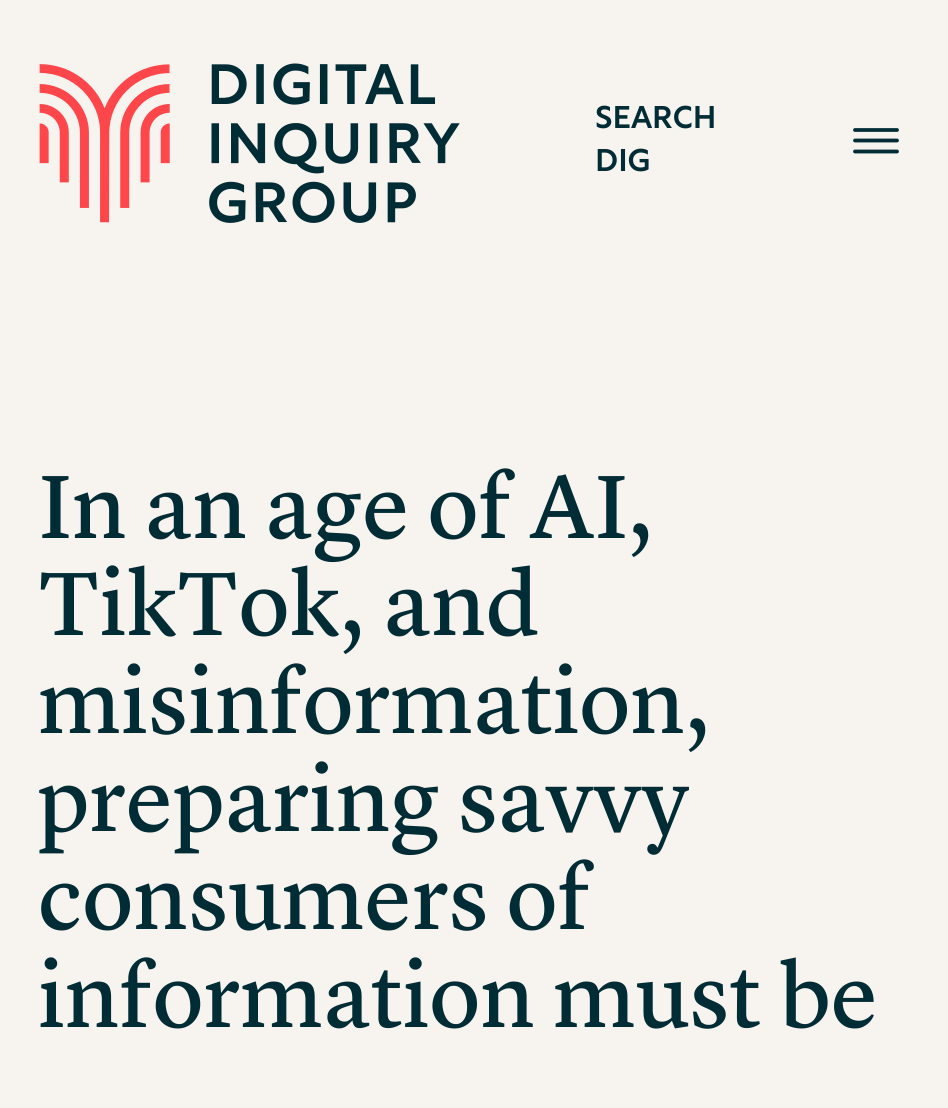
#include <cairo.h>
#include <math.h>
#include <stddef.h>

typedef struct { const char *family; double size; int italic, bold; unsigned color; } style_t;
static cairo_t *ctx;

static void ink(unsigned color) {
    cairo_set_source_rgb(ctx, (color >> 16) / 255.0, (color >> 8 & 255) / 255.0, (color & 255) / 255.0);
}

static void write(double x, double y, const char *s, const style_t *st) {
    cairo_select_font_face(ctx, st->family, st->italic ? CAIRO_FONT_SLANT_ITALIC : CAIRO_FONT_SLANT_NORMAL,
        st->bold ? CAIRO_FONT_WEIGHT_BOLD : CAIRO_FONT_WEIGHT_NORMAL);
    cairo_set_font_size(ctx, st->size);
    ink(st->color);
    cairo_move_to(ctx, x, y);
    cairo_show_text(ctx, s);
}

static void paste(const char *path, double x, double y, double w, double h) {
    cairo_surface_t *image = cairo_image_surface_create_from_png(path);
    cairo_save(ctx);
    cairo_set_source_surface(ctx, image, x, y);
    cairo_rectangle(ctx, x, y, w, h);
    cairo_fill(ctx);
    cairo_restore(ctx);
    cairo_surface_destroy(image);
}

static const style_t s1 = {"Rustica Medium", 31, 0, 0, 0x002c35};
static const style_t s2 = {"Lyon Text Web", 93.25, 0, 0, 0x002c35};

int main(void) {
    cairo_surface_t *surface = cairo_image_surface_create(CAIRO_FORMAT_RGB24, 948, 1108);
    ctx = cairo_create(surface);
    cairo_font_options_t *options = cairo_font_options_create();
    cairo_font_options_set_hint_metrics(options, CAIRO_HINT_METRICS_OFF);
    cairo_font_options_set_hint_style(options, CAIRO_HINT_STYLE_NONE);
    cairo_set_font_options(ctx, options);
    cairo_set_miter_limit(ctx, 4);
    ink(0xf7f3ee);
    cairo_paint(ctx);
    paste("pic1.png", 39, 63, 421, 160);
    write(595, 128, "SEARCH", &s1);
    write(595, 171, "DIG", &s1);
    cairo_new_path(ctx);
    cairo_move_to(ctx, 855, 130);
    cairo_line_to(ctx, 897, 130);
    cairo_move_to(ctx, 855, 140.5);
    cairo_line_to(ctx, 897, 140.5);
    cairo_move_to(ctx, 855, 151.5);
    cairo_line_to(ctx, 897, 151.5);
    cairo_set_line_width(ctx, 3.8);
    cairo_set_line_cap(ctx, CAIRO_LINE_CAP_ROUND);
    cairo_stroke(ctx);
    write(38, 538, "In an age of AI,", &s2);
    write(38, 635, "TikTok, and", &s2);
    write(38, 733, "misinformation,", &s2);
    write(38, 831, "preparing savvy", &s2);
    write(38, 929, "consumers of", &s2);
    write(38, 1027, "information must be", &s2);
    cairo_surface_write_to_png(surface, "screenshot.png");
    cairo_font_options_destroy(options);
    cairo_destroy(ctx);
    cairo_surface_destroy(surface);
    return 0;
}
